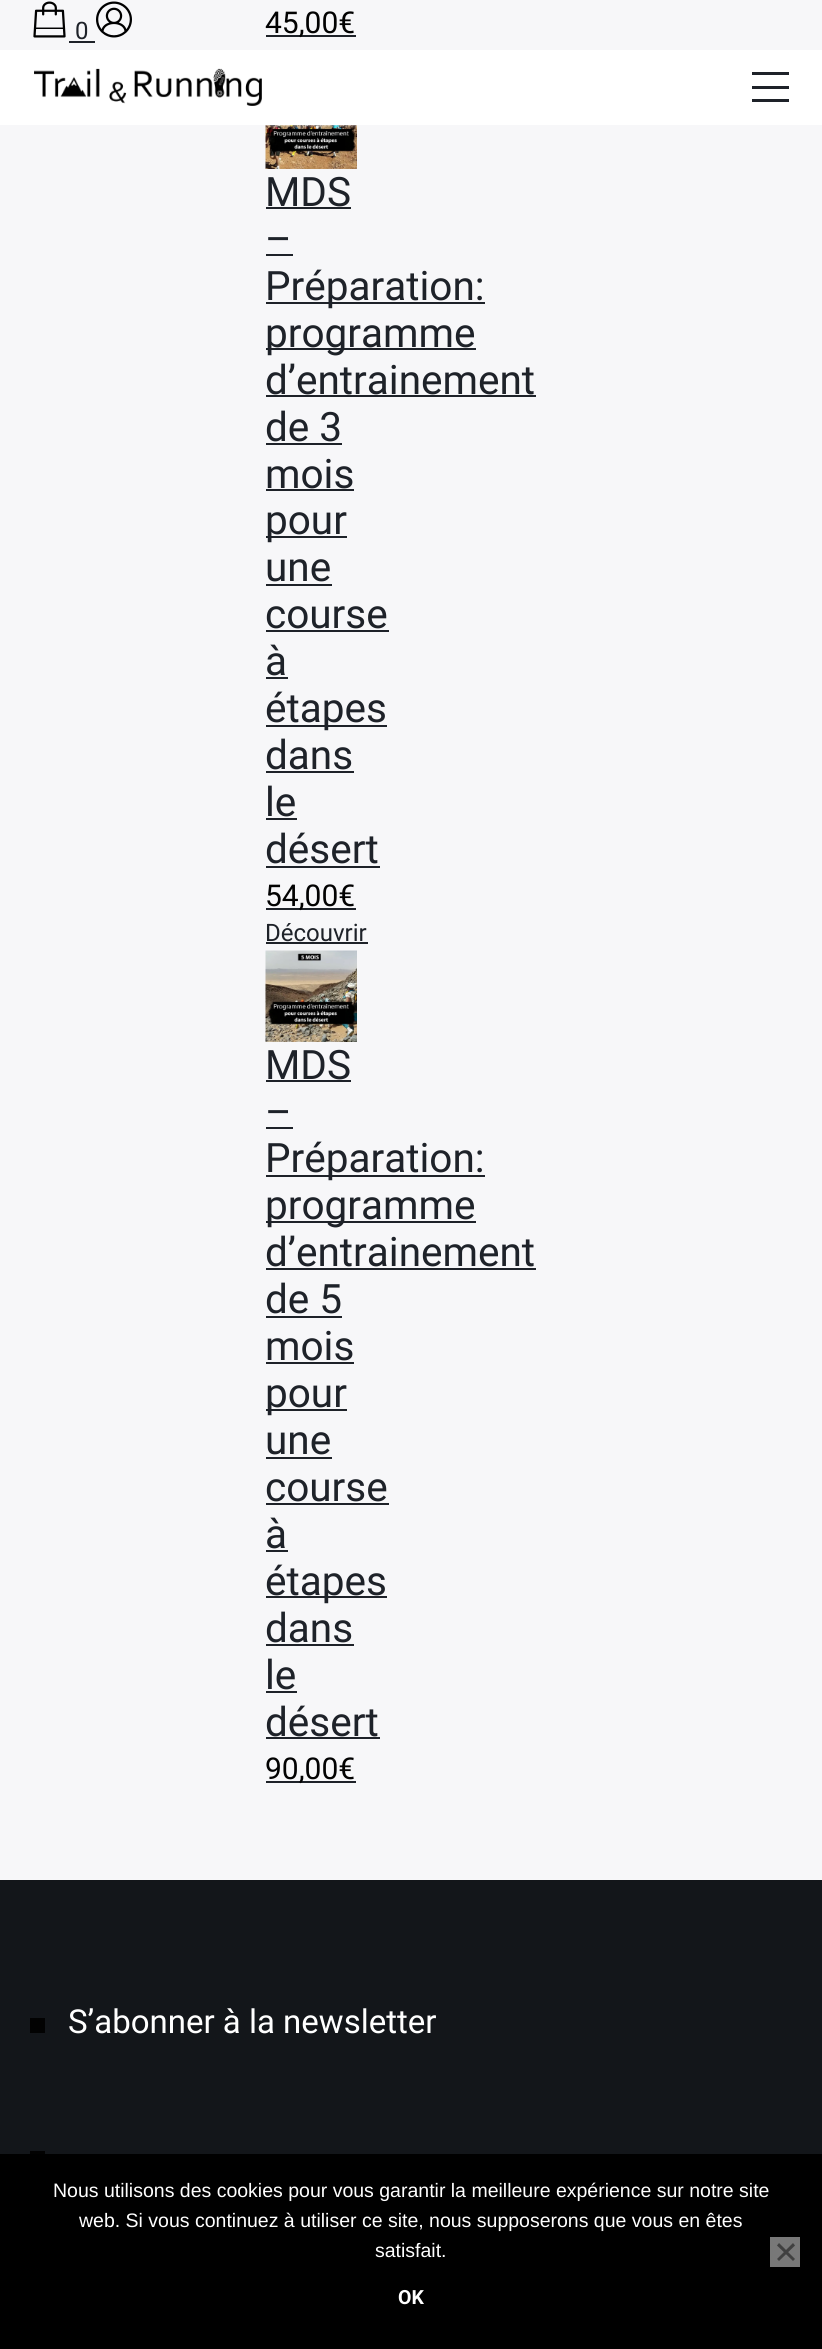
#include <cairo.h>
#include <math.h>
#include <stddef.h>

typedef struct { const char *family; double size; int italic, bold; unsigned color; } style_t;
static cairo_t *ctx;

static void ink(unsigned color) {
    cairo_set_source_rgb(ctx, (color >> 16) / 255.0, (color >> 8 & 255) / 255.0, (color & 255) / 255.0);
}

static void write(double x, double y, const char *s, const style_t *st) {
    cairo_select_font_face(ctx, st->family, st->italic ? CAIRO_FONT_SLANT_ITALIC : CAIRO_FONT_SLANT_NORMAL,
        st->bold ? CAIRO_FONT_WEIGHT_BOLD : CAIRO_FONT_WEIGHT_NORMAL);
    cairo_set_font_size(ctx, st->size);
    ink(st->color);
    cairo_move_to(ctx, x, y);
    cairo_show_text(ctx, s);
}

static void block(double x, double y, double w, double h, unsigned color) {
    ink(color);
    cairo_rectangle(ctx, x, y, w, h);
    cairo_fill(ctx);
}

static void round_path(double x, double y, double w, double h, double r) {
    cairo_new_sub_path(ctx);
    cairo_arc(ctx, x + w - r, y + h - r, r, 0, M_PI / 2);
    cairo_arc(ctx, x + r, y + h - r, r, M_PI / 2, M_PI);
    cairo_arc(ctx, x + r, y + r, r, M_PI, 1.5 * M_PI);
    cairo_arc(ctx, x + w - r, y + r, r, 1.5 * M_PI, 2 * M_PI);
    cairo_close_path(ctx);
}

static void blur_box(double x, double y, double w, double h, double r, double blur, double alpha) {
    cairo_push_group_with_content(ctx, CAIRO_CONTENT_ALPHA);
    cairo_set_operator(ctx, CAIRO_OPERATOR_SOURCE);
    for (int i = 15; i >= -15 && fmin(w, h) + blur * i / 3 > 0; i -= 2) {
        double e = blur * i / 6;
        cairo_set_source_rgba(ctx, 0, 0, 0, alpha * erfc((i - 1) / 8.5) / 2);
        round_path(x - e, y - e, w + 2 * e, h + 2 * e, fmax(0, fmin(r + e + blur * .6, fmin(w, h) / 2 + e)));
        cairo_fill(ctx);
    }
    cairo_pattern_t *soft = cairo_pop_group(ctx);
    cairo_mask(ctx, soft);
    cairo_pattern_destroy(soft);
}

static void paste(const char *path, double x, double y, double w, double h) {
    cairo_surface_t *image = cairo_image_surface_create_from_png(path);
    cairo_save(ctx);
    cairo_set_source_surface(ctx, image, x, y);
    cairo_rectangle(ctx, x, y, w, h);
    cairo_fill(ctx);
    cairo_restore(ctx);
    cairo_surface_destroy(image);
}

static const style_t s1 = {"Roboto", 24, 0, 0, 0x1e2229};
static const style_t s2 = {"Roboto", 30, 0, 0, 0x020202};
static const style_t s3 = {"Roboto", 40.5, 0, 0, 0x1e2229};
static const style_t s4 = {"Roboto", 33, 0, 0, 0xffffff};
static const style_t s5 = {"Liberation Sans", 19.5, 0, 0, 0xffffff};
static const style_t s6 = {"Roboto", 19.5, 0, 1, 0xffffff};

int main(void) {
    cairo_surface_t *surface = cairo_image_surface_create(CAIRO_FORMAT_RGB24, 822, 2349);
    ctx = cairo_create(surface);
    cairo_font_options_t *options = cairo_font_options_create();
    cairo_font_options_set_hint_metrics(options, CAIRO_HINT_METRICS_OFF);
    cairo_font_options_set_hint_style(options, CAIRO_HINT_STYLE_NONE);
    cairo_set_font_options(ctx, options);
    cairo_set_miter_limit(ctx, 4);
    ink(0xf7f7f9);
    cairo_paint(ctx);
    block(266, 35, 90, 2, 0x1e2229);
    paste("pic4.png", 265, 125, 92, 44);
    cairo_save(ctx);
    cairo_rectangle(ctx, 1, 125, 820, 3);
    cairo_clip(ctx);
    ink(0xf7f7f9);
    blur_box(3, 6, 816, 119, 0, 1.5, 1);
    cairo_restore(ctx);
    paste("pic1.png", 33, 1, 33, 37);
    write(75, 39, "0", &s1);
    block(69, 41, 26, 2, 0x1e2229);
    paste("pic2.png", 96, 1, 36, 37);
    block(0, 50, 822, 75, 0xffffff);
    paste("pic3.png", 34, 68, 228, 38);
    block(752, 86, 37, 3, 0x1e2229);
    block(752, 72, 37, 3, 0x1e2229);
    block(752, 99, 37, 3, 0x1e2229);
    write(265, 33, "45,00€", &s2);
    write(265, 206, "MDS", &s3);
    block(266, 207, 85, 2, 0x1e2229);
    write(265, 253, "–", &s3);
    block(266, 254, 27, 2, 0x1e2229);
    block(266, 302, 219, 2, 0x1e2229);
    write(265, 300, "Préparation:", &s3);
    block(266, 348, 210, 2, 0x1e2229);
    write(265, 347, "programme", &s3);
    write(265, 394, "d’entrainement", &s3);
    block(266, 395, 270, 2, 0x1e2229);
    write(265, 441, "de 3", &s3);
    block(266, 443, 76, 2, 0x1e2229);
    write(265, 488, "mois", &s3);
    block(266, 489, 88, 2, 0x1e2229);
    block(266, 536, 81, 2, 0x1e2229);
    write(265, 534, "pour", &s3);
    write(265, 581, "une", &s3);
    block(266, 584, 66, 2, 0x1e2229);
    write(265, 628, "course", &s3);
    block(266, 630, 123, 2, 0x1e2229);
    write(265, 675, "à", &s3);
    block(266, 677, 22, 2, 0x1e2229);
    block(266, 725, 121, 2, 0x1e2229);
    write(265, 722, "étapes", &s3);
    write(265, 769, "dans", &s3);
    block(266, 771, 88, 2, 0x1e2229);
    write(265, 816, "le", &s3);
    block(266, 818, 31, 2, 0x1e2229);
    write(265, 863, "désert", &s3);
    block(266, 866, 114, 2, 0x1e2229);
    block(266, 908, 90, 2, 0x1e2229);
    write(265, 906, "54,00€", &s2);
    write(265, 941, "Découvrir", &s1);
    block(266, 942, 102, 2, 0x1e2229);
    paste("pic5.png", 265, 950, 92, 92);
    write(265, 1079, "MDS", &s3);
    block(266, 1080, 85, 2, 0x1e2229);
    write(265, 1126, "–", &s3);
    block(266, 1127, 27, 2, 0x1e2229);
    block(266, 1175, 219, 2, 0x1e2229);
    write(265, 1172, "Préparation:", &s3);
    block(266, 1221, 210, 2, 0x1e2229);
    write(265, 1219, "programme", &s3);
    write(265, 1266, "d’entrainement", &s3);
    block(266, 1268, 270, 2, 0x1e2229);
    write(265, 1313, "de 5", &s3);
    block(266, 1316, 76, 2, 0x1e2229);
    write(265, 1360, "mois", &s3);
    block(266, 1362, 88, 2, 0x1e2229);
    block(266, 1409, 81, 2, 0x1e2229);
    write(265, 1407, "pour", &s3);
    write(265, 1454, "une", &s3);
    block(266, 1457, 66, 2, 0x1e2229);
    write(265, 1501, "course", &s3);
    block(266, 1503, 123, 2, 0x1e2229);
    write(265, 1548, "à", &s3);
    block(266, 1550, 22, 2, 0x1e2229);
    block(266, 1596, 121, 2, 0x1e2229);
    write(265, 1595, "étapes", &s3);
    write(265, 1642, "dans", &s3);
    block(266, 1644, 88, 2, 0x1e2229);
    write(265, 1689, "le", &s3);
    block(266, 1691, 31, 2, 0x1e2229);
    write(265, 1736, "désert", &s3);
    block(266, 1737, 114, 2, 0x1e2229);
    block(266, 1781, 90, 2, 0x1e2229);
    write(265, 1779, "90,00€", &s2);
    block(0, 1880, 822, 274, 0x13161a);
    block(30, 2018, 15, 15, 0x020202);
    write(68, 2033, "S’abonner à la newsletter", &s4);
    block(30, 2151, 15, 3, 0x020202);
    block(0, 2154, 822, 195, 0x000000);
    write(53, 2197, "Nous utilisons des cookies pour vous garantir la meilleure expérience sur notre site", &s5);
    write(79, 2227, "web. Si vous continuez à utiliser ce site, nous supposerons que vous en êtes", &s5);
    write(375, 2257, "satisfait.", &s5);
    block(770, 2237, 30, 30, 0x787878);
    ink(0x404040);
    cairo_new_path(ctx);
    cairo_move_to(ctx, 793, 2243);
    cairo_line_to(ctx, 795, 2245.5);
    cairo_line_to(ctx, 779, 2261);
    cairo_line_to(ctx, 777, 2259);
    cairo_close_path(ctx);
    cairo_fill(ctx);
    cairo_new_path(ctx);
    cairo_move_to(ctx, 777, 2245.5);
    cairo_line_to(ctx, 779, 2243);
    cairo_line_to(ctx, 795, 2259);
    cairo_line_to(ctx, 793, 2261);
    cairo_close_path(ctx);
    cairo_fill(ctx);
    write(398, 2304, "OK", &s6);
    cairo_surface_write_to_png(surface, "screenshot.png");
    cairo_font_options_destroy(options);
    cairo_destroy(ctx);
    cairo_surface_destroy(surface);
    return 0;
}
